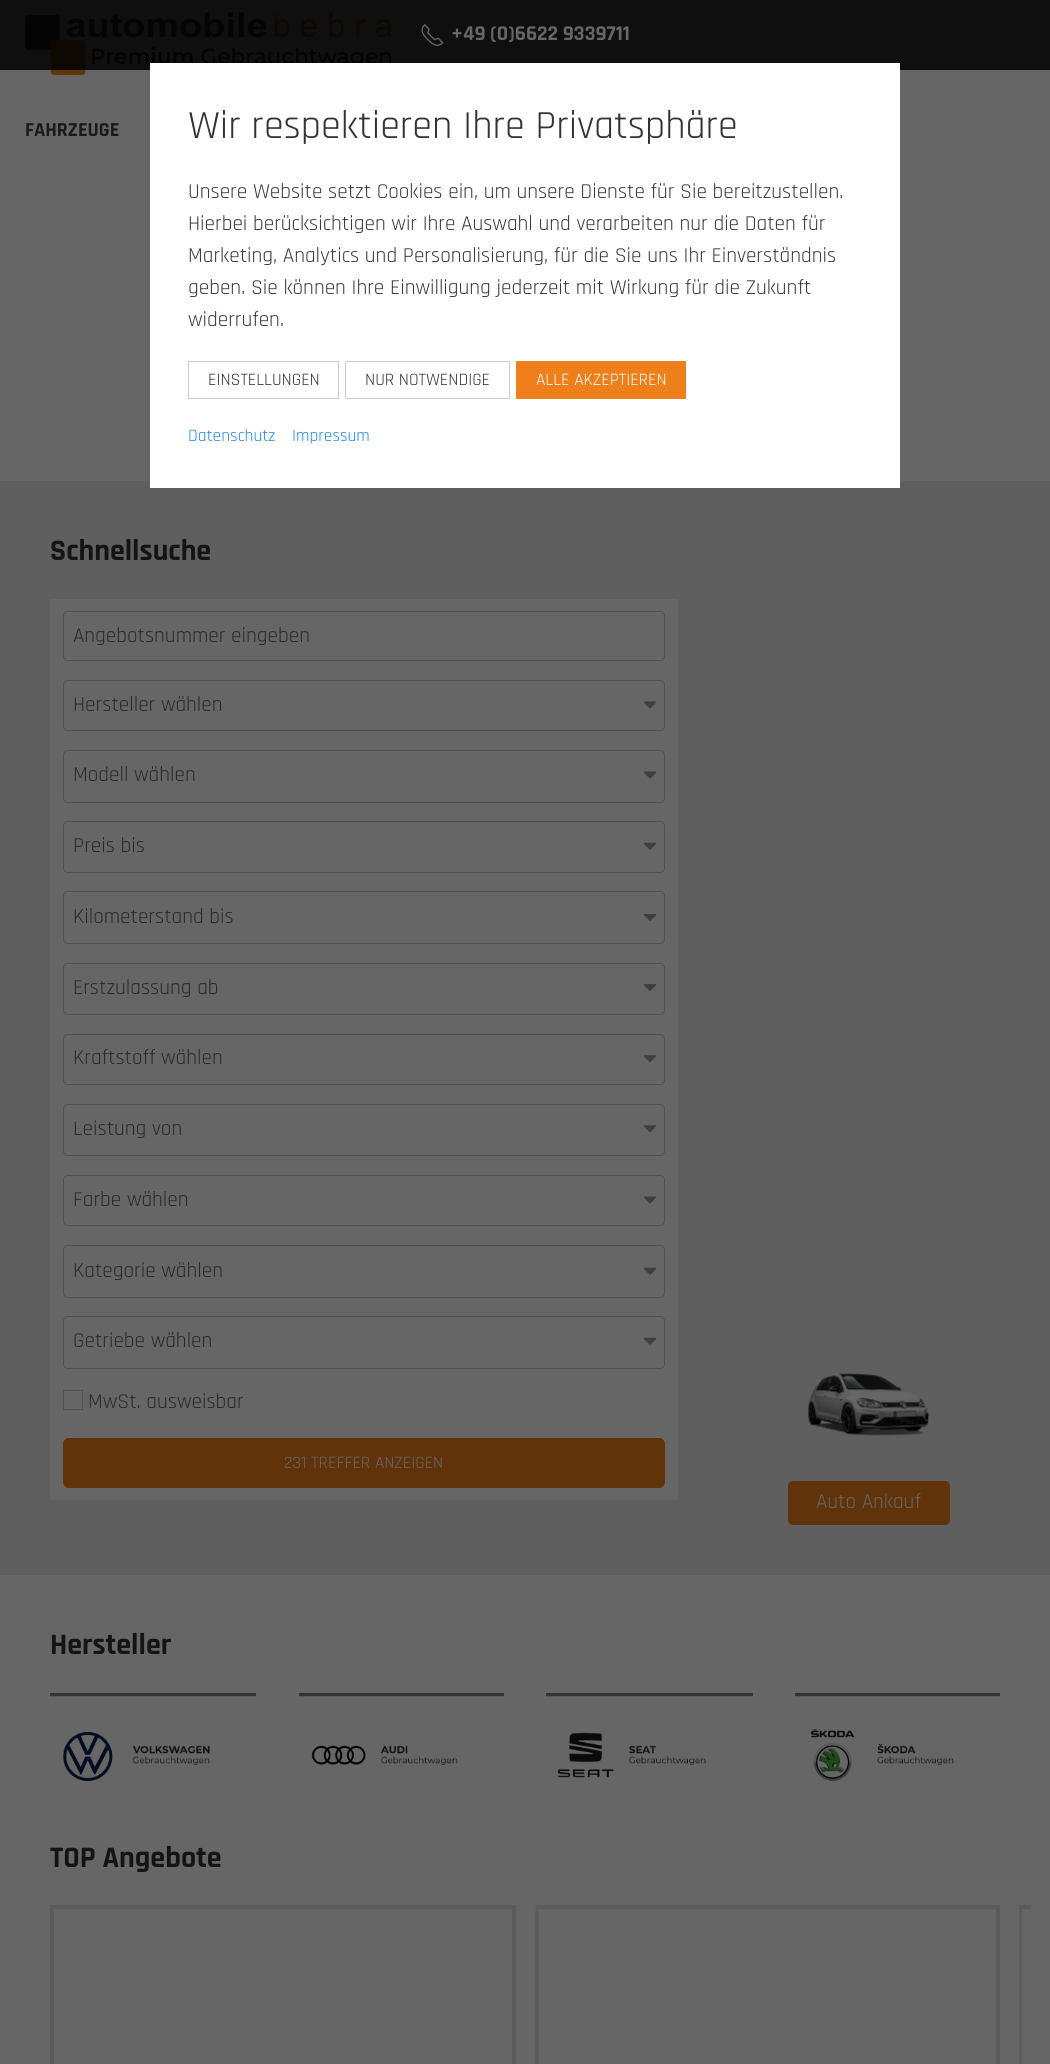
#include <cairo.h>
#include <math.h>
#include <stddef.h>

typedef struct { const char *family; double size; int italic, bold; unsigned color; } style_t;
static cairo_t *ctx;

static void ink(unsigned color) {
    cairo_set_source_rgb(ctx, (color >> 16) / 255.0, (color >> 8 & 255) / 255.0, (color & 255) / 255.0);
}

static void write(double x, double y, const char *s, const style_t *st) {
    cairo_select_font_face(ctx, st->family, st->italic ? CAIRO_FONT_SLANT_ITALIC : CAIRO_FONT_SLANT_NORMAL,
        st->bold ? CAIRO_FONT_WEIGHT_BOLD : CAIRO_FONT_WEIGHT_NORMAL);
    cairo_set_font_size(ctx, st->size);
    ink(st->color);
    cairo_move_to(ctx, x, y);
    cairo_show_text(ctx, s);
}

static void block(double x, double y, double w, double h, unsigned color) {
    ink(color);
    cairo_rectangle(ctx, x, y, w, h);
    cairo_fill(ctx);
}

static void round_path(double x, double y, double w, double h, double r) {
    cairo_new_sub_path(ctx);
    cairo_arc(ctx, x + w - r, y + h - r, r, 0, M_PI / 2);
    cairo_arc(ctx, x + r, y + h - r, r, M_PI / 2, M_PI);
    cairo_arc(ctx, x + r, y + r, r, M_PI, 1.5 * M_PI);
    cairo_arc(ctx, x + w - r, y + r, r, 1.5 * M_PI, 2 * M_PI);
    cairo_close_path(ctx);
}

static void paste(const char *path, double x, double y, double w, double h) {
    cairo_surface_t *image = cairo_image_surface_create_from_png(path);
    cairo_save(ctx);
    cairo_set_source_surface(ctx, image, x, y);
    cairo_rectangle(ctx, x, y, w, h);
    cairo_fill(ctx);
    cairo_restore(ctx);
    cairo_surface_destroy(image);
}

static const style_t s1 = {"Rajdhani", 21.25, 0, 1, 0x666666};
static const style_t s2 = {"Rajdhani", 20, 0, 1, 0x1b1a1a};
static const style_t s3 = {"Rajdhani", 40, 0, 0, 0x333333};
static const style_t s4 = {"Rajdhani", 21.25, 0, 0, 0x3a3a3a};
static const style_t s5 = {"Rajdhani", 17.5, 0, 0, 0x333333};
static const style_t s6 = {"Rajdhani", 17.5, 0, 0, 0xffffff};
static const style_t s7 = {"Rajdhani", 17.5, 0, 0, 0x1e87f0};
static const style_t s8 = {"Rajdhani", 30, 0, 1, 0x141414};
static const style_t s9 = {"Rajdhani", 21.25, 0, 0, 0x292929};
static const style_t s10 = {"Rajdhani", 17.5, 0, 0, 0x666666};
static const style_t s11 = {"Rajdhani", 21.25, 0, 0, 0x666666};

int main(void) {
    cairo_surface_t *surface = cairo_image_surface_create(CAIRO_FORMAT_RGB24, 1050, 2064);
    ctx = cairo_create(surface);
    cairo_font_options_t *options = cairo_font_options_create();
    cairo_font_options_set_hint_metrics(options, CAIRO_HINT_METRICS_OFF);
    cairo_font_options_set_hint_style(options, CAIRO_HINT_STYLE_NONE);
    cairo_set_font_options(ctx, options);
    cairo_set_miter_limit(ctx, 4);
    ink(0x666666);
    cairo_paint(ctx);
    block(0, 0, 1050, 70, 0x0f0f0f);
    paste("pic1.png", 421, 24, 23, 22);
    write(451, 40, "+49 (0)6622 9339711", &s1);
    paste("pic2.png", 25, 12, 367, 63);
    write(25, 136, "FAHRZEUGE", &s2);
    block(0, 481, 1050, 1094, 0x5f5f5f);
    block(150, 63, 750, 425, 0xffffff);
    write(188, 138, "Wir respektieren Ihre Privatsphäre", &s3);
    write(188, 198, "Unsere Website setzt Cookies ein, um unsere Dienste für Sie bereitzustellen.", &s4);
    write(188, 230, "Hierbei berücksichtigen wir Ihre Auswahl und verarbeiten nur die Daten für", &s4);
    write(188, 262, "Marketing, Analytics und Personalisierung, für die Sie uns Ihr Einverständnis", &s4);
    write(188, 294, "geben. Sie können Ihre Einwilligung jederzeit mit Wirkung für die Zukunft", &s4);
    write(188, 326, "widerrufen.", &s4);
    cairo_rectangle(ctx, 188.5, 361.5, 150, 37);
    ink(0xcccccc);
    cairo_set_line_width(ctx, 1);
    cairo_stroke(ctx);
    write(208, 385, "EINSTELLUNGEN", &s5);
    cairo_rectangle(ctx, 345.5, 361.5, 164, 37);
    ink(0xcccccc);
    cairo_stroke(ctx);
    write(365, 385, "NUR NOTWENDIGE", &s5);
    block(516, 361, 170, 38, 0xef7f1a);
    write(536, 385, "ALLE AKZEPTIEREN", &s6);
    write(188, 441, "Datenschutz", &s7);
    write(292, 441, "Impressum", &s7);
    write(50, 560, "Schnellsuche", &s8);
    block(50, 599, 628, 901, 0x666666);
    round_path(63.5, 611.5, 601, 49, 4.5);
    ink(0x525252);
    cairo_stroke(ctx);
    write(73, 642, "Angebotsnummer eingeben", &s9);
    round_path(63.5, 680.5, 601, 50, 4.5);
    ink(0x525252);
    cairo_stroke(ctx);
    write(73, 711, "Hersteller wählen", &s9);
    paste("pic3.png", 644, 701, 12, 8);
    round_path(63.5, 750.5, 601, 52, 4.5);
    ink(0x525252);
    cairo_stroke(ctx);
    write(73, 781, "Modell wählen", &s9);
    paste("pic3.png", 644, 771, 12, 8);
    round_path(63.5, 821.5, 601, 51, 4.5);
    ink(0x525252);
    cairo_stroke(ctx);
    write(73, 852, "Preis bis", &s9);
    paste("pic4.png", 644, 842, 12, 8);
    round_path(63.5, 891.5, 601, 52, 4.5);
    ink(0x525252);
    cairo_stroke(ctx);
    write(73, 923, "Kilometerstand bis", &s9);
    paste("pic5.png", 644, 914, 12, 7);
    round_path(63.5, 963.5, 601, 51, 4.5);
    ink(0x525252);
    cairo_stroke(ctx);
    write(73, 994, "Erstzulassung ab", &s9);
    paste("pic5.png", 644, 984, 12, 7);
    round_path(63.5, 1034.5, 601, 50, 4.5);
    ink(0x525252);
    cairo_stroke(ctx);
    write(73, 1064, "Kraftstoff wählen", &s9);
    paste("pic6.png", 644, 1055, 12, 8);
    round_path(63.5, 1104.5, 601, 51, 4.5);
    ink(0x525252);
    cairo_stroke(ctx);
    write(73, 1135, "Leistung von", &s9);
    paste("pic6.png", 644, 1125, 12, 8);
    round_path(63.5, 1175.5, 601, 50, 4.5);
    ink(0x525252);
    cairo_stroke(ctx);
    write(73, 1206, "Farbe wählen", &s9);
    paste("pic3.png", 644, 1196, 12, 8);
    round_path(63.5, 1245.5, 601, 52, 4.5);
    ink(0x525252);
    cairo_stroke(ctx);
    write(73, 1277, "Kategorie wählen", &s9);
    paste("pic4.png", 644, 1267, 12, 8);
    round_path(63.5, 1316.5, 601, 52, 4.5);
    ink(0x525252);
    cairo_stroke(ctx);
    write(73, 1347, "Getriebe wählen", &s9);
    paste("pic4.png", 644, 1337, 12, 8);
    cairo_rectangle(ctx, 63.5, 1390.5, 19, 19);
    ink(0x525252);
    cairo_stroke(ctx);
    write(88, 1408, "MwSt. ausweisbar", &s9);
    ink(0x60330a);
    round_path(63, 1438, 602, 50, 6);
    cairo_fill(ctx);
    write(284, 1468, "231 TREFFER ANZEIGEN", &s10);
    paste("pic7.png", 808, 1373, 122, 63);
    ink(0x60330a);
    round_path(788, 1481, 162, 44, 5);
    cairo_fill(ctx);
    write(816, 1508, "Auto Ankauf", &s11);
    write(50, 1654, "Hersteller", &s8);
    block(50, 1696, 206, 1, 0x5c5c5c);
    block(50, 1693, 206, 3, 0x333333);
    paste("pic8.png", 63, 1732, 147, 49);
    block(299, 1696, 205, 1, 0x5c5c5c);
    block(299, 1693, 205, 3, 0x333333);
    paste("pic9.png", 311, 1745, 147, 20);
    block(546, 1696, 207, 1, 0x5c5c5c);
    block(546, 1693, 207, 3, 0x333333);
    paste("pic10.png", 557, 1732, 149, 46);
    block(795, 1696, 205, 1, 0x5c5c5c);
    block(795, 1693, 205, 3, 0x333333);
    paste("pic11.png", 810, 1729, 144, 52);
    write(50, 1867, "TOP Angebote", &s8);
    block(50, 1905, 466, 4, 0x5c5c5c);
    cairo_new_path(ctx);
    cairo_move_to(ctx, 516, 1905);
    cairo_line_to(ctx, 516, 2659);
    cairo_line_to(ctx, 512, 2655);
    cairo_line_to(ctx, 512, 1909);
    cairo_close_path(ctx);
    cairo_fill(ctx);
    cairo_new_path(ctx);
    cairo_move_to(ctx, 50, 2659);
    cairo_line_to(ctx, 50, 1905);
    cairo_line_to(ctx, 54, 1909);
    cairo_line_to(ctx, 54, 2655);
    cairo_close_path(ctx);
    cairo_fill(ctx);
    block(535, 1905, 465, 4, 0x5c5c5c);
    cairo_new_path(ctx);
    cairo_move_to(ctx, 1000, 1905);
    cairo_line_to(ctx, 1000, 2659);
    cairo_line_to(ctx, 996, 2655);
    cairo_line_to(ctx, 996, 1909);
    cairo_close_path(ctx);
    cairo_fill(ctx);
    cairo_new_path(ctx);
    cairo_move_to(ctx, 535, 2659);
    cairo_line_to(ctx, 535, 1905);
    cairo_line_to(ctx, 539, 1909);
    cairo_line_to(ctx, 539, 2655);
    cairo_close_path(ctx);
    cairo_fill(ctx);
    block(1019, 1905, 12, 4, 0x5c5c5c);
    cairo_new_path(ctx);
    cairo_move_to(ctx, 1019, 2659);
    cairo_line_to(ctx, 1019, 1905);
    cairo_line_to(ctx, 1022, 1909);
    cairo_line_to(ctx, 1022, 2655);
    cairo_close_path(ctx);
    cairo_fill(ctx);
    cairo_surface_write_to_png(surface, "screenshot.png");
    cairo_font_options_destroy(options);
    cairo_destroy(ctx);
    cairo_surface_destroy(surface);
    return 0;
}
